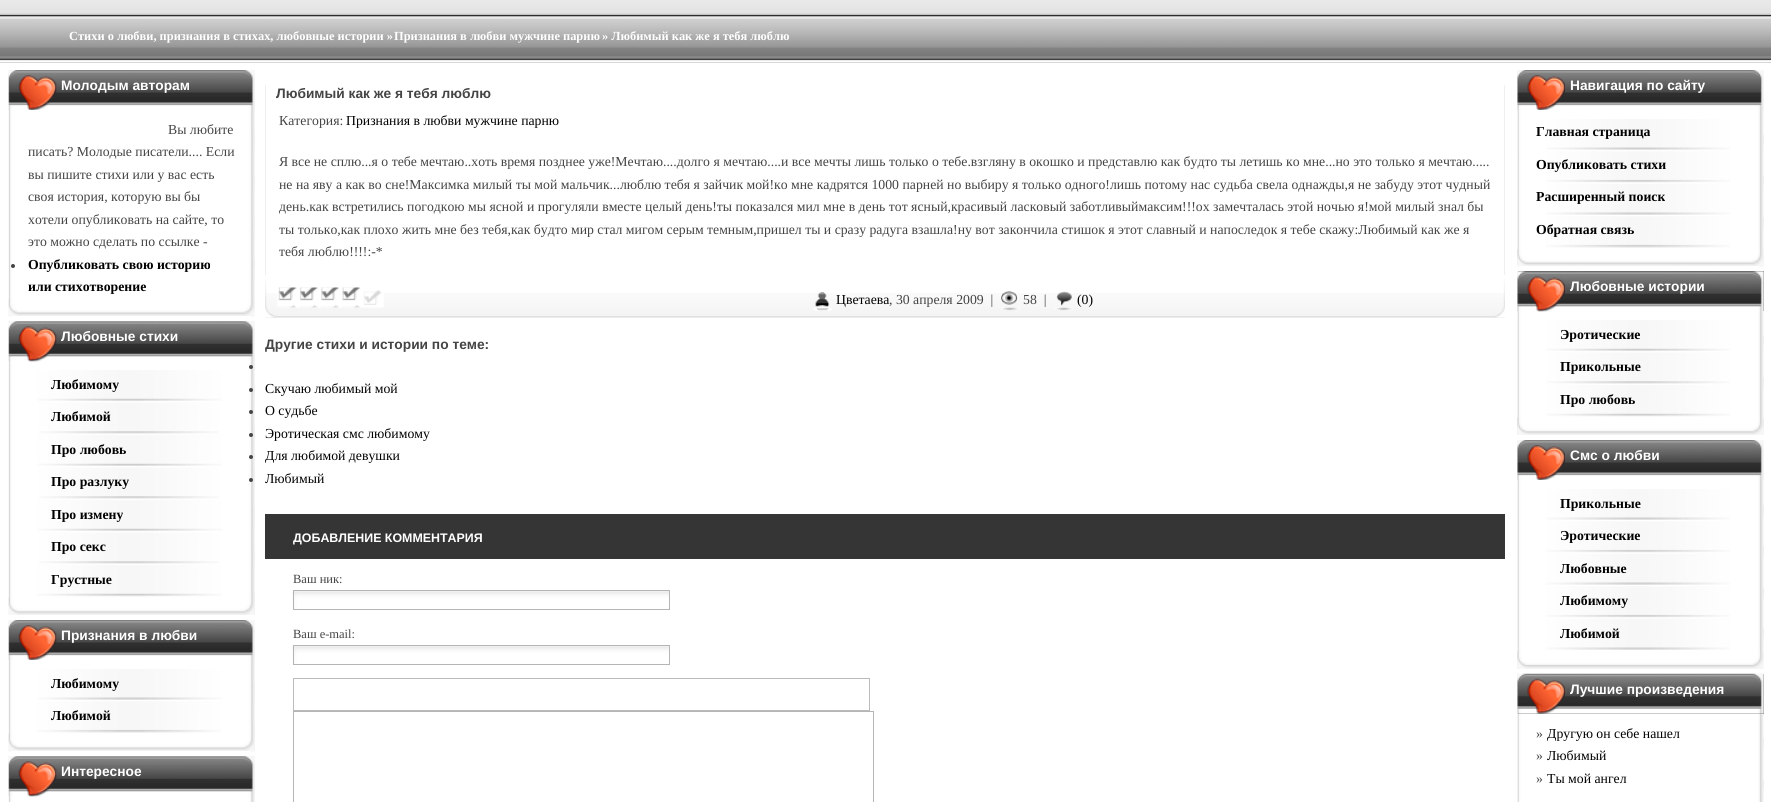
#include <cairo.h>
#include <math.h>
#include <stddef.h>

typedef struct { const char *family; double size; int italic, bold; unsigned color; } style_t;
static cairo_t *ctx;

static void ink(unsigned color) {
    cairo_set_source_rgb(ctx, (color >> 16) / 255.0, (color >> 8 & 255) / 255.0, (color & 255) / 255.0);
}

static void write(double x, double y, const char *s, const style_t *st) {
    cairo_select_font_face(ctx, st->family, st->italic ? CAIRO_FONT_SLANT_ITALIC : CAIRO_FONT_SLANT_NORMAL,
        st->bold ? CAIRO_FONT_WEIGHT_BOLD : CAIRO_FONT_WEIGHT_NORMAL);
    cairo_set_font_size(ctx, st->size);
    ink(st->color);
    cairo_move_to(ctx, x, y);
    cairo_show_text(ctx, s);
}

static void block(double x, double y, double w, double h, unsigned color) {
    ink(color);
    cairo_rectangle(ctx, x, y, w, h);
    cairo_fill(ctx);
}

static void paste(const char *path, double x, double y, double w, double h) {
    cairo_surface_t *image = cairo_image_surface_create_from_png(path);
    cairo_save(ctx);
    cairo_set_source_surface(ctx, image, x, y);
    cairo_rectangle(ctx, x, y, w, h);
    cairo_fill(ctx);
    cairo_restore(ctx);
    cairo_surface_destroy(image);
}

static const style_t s1 = {"Liberation Serif", 12.4, 0, 1, 0xffffff};
static const style_t s2 = {"Liberation Sans", 13.75, 0, 1, 0xffffff};
static const style_t s3 = {"Liberation Serif", 13.75, 0, 0, 0x444444};
static const style_t s4 = {"Liberation Serif", 13.75, 0, 1, 0x000000};
static const style_t s5 = {"Liberation Sans", 13.75, 0, 1, 0x444444};
static const style_t s6 = {"Liberation Serif", 13.75, 0, 0, 0x000000};
static const style_t s7 = {"Liberation Sans", 12.4, 0, 1, 0xffffff};
static const style_t s8 = {"Liberation Serif", 12.5, 0, 0, 0x444444};

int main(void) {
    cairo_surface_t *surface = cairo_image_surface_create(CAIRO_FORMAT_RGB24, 1771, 802);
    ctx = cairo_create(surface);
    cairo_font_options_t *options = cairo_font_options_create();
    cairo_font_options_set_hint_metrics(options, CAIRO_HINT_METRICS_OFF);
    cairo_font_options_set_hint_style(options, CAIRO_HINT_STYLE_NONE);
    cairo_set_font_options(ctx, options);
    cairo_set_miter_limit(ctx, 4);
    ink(0xffffff);
    cairo_paint(ctx);
    paste("pic1.png", 0, 0, 1771, 15);
    block(0, 62, 1771, 1, 0xaaaaaa);
    paste("pic2.png", 0, 15, 1771, 48);
    write(69, 40, "Стихи о любви, признания в стихах, любовные истории »", &s1);
    write(394, 40, "Признания в любви мужчине парню", &s1);
    write(602, 40, "» Любимый как же я тебя люблю", &s1);
    paste("pic3.png", 8, 70, 247, 247);
    paste("pic4.png", 8, 299, 247, 17);
    paste("pic5.png", 8, 70, 247, 40);
    paste("pic6.png", 18, 75, 39, 35);
    write(61, 90, "Молодым авторам", &s2);
    write(168, 134, "Вы любите", &s3);
    write(28, 156, "писать? Молодые писатели.... Если", &s3);
    write(28, 179, "вы пишите стихи или у вас есть", &s3);
    write(28, 201, "своя история, которую вы бы", &s3);
    write(28, 224, "хотели опубликовать на сайте, то", &s3);
    write(28, 246, "это можно сделать по ссылке -", &s3);
    cairo_new_path(ctx);
    cairo_arc(ctx, 13, 266, 2, 0, 2 * M_PI);
    cairo_fill(ctx);
    write(28, 269, "Опубликовать свою историю", &s4);
    write(28, 291, "или стихотворение", &s4);
    paste("pic7.png", 8, 321, 247, 294);
    paste("pic8.png", 8, 597, 246, 18);
    paste("pic9.png", 8, 321, 247, 40);
    paste("pic10.png", 18, 326, 39, 36);
    write(61, 341, "Любовные стихи", &s2);
    paste("pic11.png", 37, 370, 185, 32);
    write(51, 389, "Любимому", &s4);
    paste("pic12.png", 39, 401, 180, 33);
    write(51, 421, "Любимой", &s4);
    paste("pic13.png", 37, 433, 185, 34);
    write(51, 454, "Про любовь", &s4);
    paste("pic12.png", 39, 466, 180, 33);
    write(51, 486, "Про разлуку", &s4);
    paste("pic13.png", 37, 498, 185, 34);
    write(51, 519, "Про измену", &s4);
    paste("pic12.png", 39, 531, 180, 33);
    write(51, 551, "Про секс", &s4);
    paste("pic13.png", 37, 563, 185, 34);
    write(51, 584, "Грустные", &s4);
    paste("pic14.png", 8, 620, 247, 132);
    paste("pic15.png", 8, 734, 246, 17);
    paste("pic5.png", 8, 620, 247, 40);
    paste("pic6.png", 18, 625, 39, 35);
    write(61, 640, "Признания в любви", &s2);
    paste("pic16.png", 38, 669, 183, 31);
    write(51, 688, "Любимому", &s4);
    paste("pic17.png", 37, 701, 184, 32);
    write(51, 720, "Любимой", &s4);
    paste("pic18.png", 8, 756, 247, 46);
    paste("pic9.png", 8, 756, 247, 40);
    paste("pic19.png", 18, 761, 39, 36);
    write(61, 776, "Интересное", &s2);
    block(1504, 85, 1, 190, 0xf0f0f0);
    block(265, 85, 1, 190, 0xf0f0f0);
    write(276, 98, "Любимый как же я тебя люблю", &s5);
    write(279, 125, "Категория:", &s3);
    write(346, 125, "Признания в любви мужчине парню", &s6);
    write(279, 166, "Я все не сплю...я о тебе мечтаю..хоть время позднее уже!Мечтаю....долго я мечтаю....и все мечты лишь только о тебе.взгляну в окошко и представлю как будто ты летишь ко мне...но это только я мечтаю.....", &s3);
    write(279, 189, "не на яву а как во сне!Максимка милый ты мой мальчик...люблю тебя я зайчик мой!ко мне кадрятся 1000 парней но выбиру я только одного!лишь потому нас судьба свела однажды,я не забуду этот чудный", &s3);
    write(279, 211, "день.как встретились погодкою мы ясной и прогуляли вместе целый день!ты показался мил мне в день тот ясный,красивый ласковый заботливыймаксим!!!ох замечталась этой ночью я!мой милый знал бы", &s3);
    write(279, 234, "ты только,как плохо жить мне без тебя,как будто мир стал мигом серым темным,пришел ты и сразу радуга взашла!ну вот закончила стишок я этот славный и напоследок я тебе скажу:Любимый как же я", &s3);
    write(279, 256, "тебя люблю!!!!:-*", &s3);
    paste("pic20.png", 265, 293, 1240, 25);
    paste("pic21.png", 265, 279, 11, 39);
    paste("pic22.png", 277, 290, 107, 18);
    paste("pic23.png", 278, 287, 83, 21);
    paste("pic24.png", 813, 292, 19, 19);
    write(836, 304, "Цветаева", &s6);
    write(889, 304, ", 30 апреля 2009  |", &s3);
    paste("pic25.png", 1001, 291, 19, 20);
    write(1023, 304, "58  |", &s3);
    paste("pic26.png", 1054, 291, 19, 20);
    write(1077, 304, "(0)", &s6);
    paste("pic27.png", 1494, 279, 11, 39);
    write(265, 349, "Другие стихи и истории по теме:", &s5);
    cairo_new_path(ctx);
    cairo_arc(ctx, 251, 367, 2, 0, 2 * M_PI);
    cairo_fill(ctx);
    cairo_arc(ctx, 251, 390, 2, 0, 2 * M_PI);
    cairo_fill(ctx);
    write(265, 393, "Скучаю любимый мой", &s6);
    ink(0x444444);
    cairo_new_path(ctx);
    cairo_arc(ctx, 251, 412, 2, 0, 2 * M_PI);
    cairo_fill(ctx);
    write(265, 415, "О судьбе", &s6);
    ink(0x444444);
    cairo_new_path(ctx);
    cairo_arc(ctx, 251, 435, 2, 0, 2 * M_PI);
    cairo_fill(ctx);
    write(265, 438, "Эротическая смс любимому", &s6);
    ink(0x444444);
    cairo_new_path(ctx);
    cairo_arc(ctx, 251, 457, 2, 0, 2 * M_PI);
    cairo_fill(ctx);
    write(265, 460, "Для любимой девушки", &s6);
    ink(0x444444);
    cairo_new_path(ctx);
    cairo_arc(ctx, 251, 480, 2, 0, 2 * M_PI);
    cairo_fill(ctx);
    write(265, 483, "Любимый", &s6);
    block(265, 514, 1240, 45, 0x353535);
    write(293, 542, "ДОБАВЛЕНИЕ КОММЕНТАРИЯ", &s7);
    write(293, 583, "Ваш ник:", &s8);
    paste("pic28.png", 292, 591, 377, 19);
    cairo_rectangle(ctx, 293.5, 590.5, 376, 19);
    ink(0xb5b5b5);
    cairo_set_line_width(ctx, 1);
    cairo_stroke(ctx);
    write(293, 638, "Ваш e-mail:", &s8);
    paste("pic28.png", 292, 646, 377, 19);
    cairo_rectangle(ctx, 293.5, 645.5, 376, 19);
    ink(0xb5b5b5);
    cairo_stroke(ctx);
    cairo_rectangle(ctx, 293.5, 678.5, 576, 32);
    ink(0xbbbbbb);
    cairo_stroke(ctx);
    cairo_rectangle(ctx, 293.5, 711.5, 580, 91);
    ink(0xb5b5b5);
    cairo_stroke(ctx);
    paste("pic29.png", 1517, 70, 247, 197);
    paste("pic30.png", 1517, 249, 247, 17);
    paste("pic31.png", 1517, 70, 247, 40);
    paste("pic32.png", 1527, 75, 38, 35);
    write(1570, 90, "Навигация по сайту", &s2);
    paste("pic33.png", 1546, 119, 184, 31);
    write(1536, 136, "Главная страница", &s4);
    paste("pic34.png", 1546, 151, 184, 32);
    write(1536, 169, "Опубликовать стихи", &s4);
    paste("pic35.png", 1546, 182, 184, 33);
    write(1536, 201, "Расширенный поиск", &s4);
    paste("pic34.png", 1546, 216, 184, 32);
    write(1536, 234, "Обратная связь", &s4);
    paste("pic36.png", 1517, 271, 247, 164);
    paste("pic37.png", 1517, 417, 246, 18);
    block(1518, 271, 246, 40, 0x2f2f2f);
    paste("pic38.png", 1517, 271, 247, 40);
    paste("pic39.png", 1527, 276, 38, 36);
    write(1570, 291, "Любовные истории", &s2);
    paste("pic40.png", 1546, 320, 184, 32);
    write(1560, 339, "Эротические", &s4);
    paste("pic41.png", 1547, 351, 183, 33);
    write(1560, 371, "Прикольные", &s4);
    paste("pic42.png", 1546, 383, 184, 34);
    write(1560, 404, "Про любовь", &s4);
    paste("pic43.png", 1517, 440, 247, 229);
    paste("pic44.png", 1517, 651, 247, 18);
    paste("pic31.png", 1517, 440, 247, 40);
    paste("pic32.png", 1527, 445, 38, 35);
    write(1570, 460, "Смс о любви", &s2);
    paste("pic33.png", 1546, 489, 184, 31);
    write(1560, 508, "Прикольные", &s4);
    paste("pic34.png", 1546, 521, 184, 32);
    write(1560, 540, "Эротические", &s4);
    paste("pic35.png", 1546, 552, 184, 33);
    write(1560, 573, "Любовные", &s4);
    paste("pic34.png", 1546, 586, 184, 32);
    write(1560, 605, "Любимому", &s4);
    paste("pic35.png", 1546, 617, 184, 33);
    write(1560, 638, "Любимой", &s4);
    paste("pic45.png", 1517, 673, 247, 129);
    block(1518, 674, 246, 40, 0x2f2f2f);
    paste("pic46.png", 1517, 673, 247, 41);
    paste("pic47.png", 1527, 678, 38, 36);
    write(1570, 694, "Лучшие произведения", &s2);
    write(1536, 738, "»", &s3);
    write(1547, 738, "Другую он себе нашел", &s6);
    write(1536, 760, "»", &s3);
    write(1547, 760, "Любимый", &s6);
    write(1536, 783, "»", &s3);
    write(1547, 783, "Ты мой ангел", &s6);
    cairo_surface_write_to_png(surface, "screenshot.png");
    cairo_font_options_destroy(options);
    cairo_destroy(ctx);
    cairo_surface_destroy(surface);
    return 0;
}
